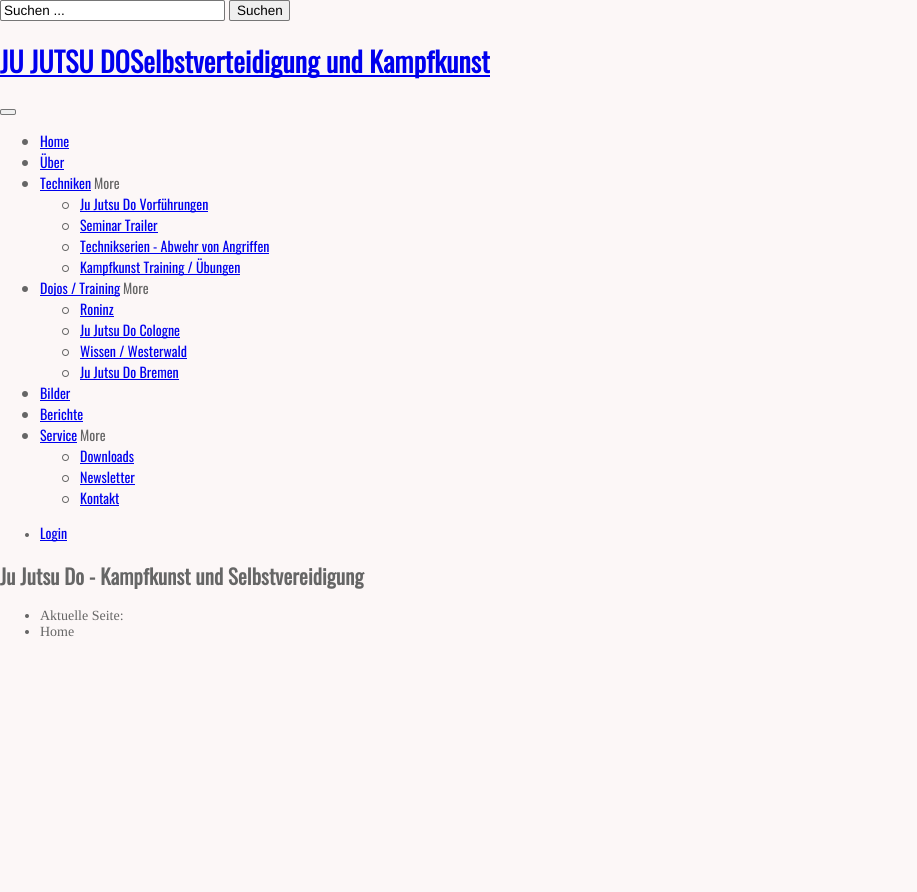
#include <cairo.h>
#include <math.h>
#include <stddef.h>

typedef struct { const char *family; double size; int italic, bold; unsigned color; } style_t;
static cairo_t *ctx;

static void ink(unsigned color) {
    cairo_set_source_rgb(ctx, (color >> 16) / 255.0, (color >> 8 & 255) / 255.0, (color & 255) / 255.0);
}

static void write(double x, double y, const char *s, const style_t *st) {
    cairo_select_font_face(ctx, st->family, st->italic ? CAIRO_FONT_SLANT_ITALIC : CAIRO_FONT_SLANT_NORMAL,
        st->bold ? CAIRO_FONT_WEIGHT_BOLD : CAIRO_FONT_WEIGHT_NORMAL);
    cairo_set_font_size(ctx, st->size);
    ink(st->color);
    cairo_move_to(ctx, x, y);
    cairo_show_text(ctx, s);
}

static void block(double x, double y, double w, double h, unsigned color) {
    ink(color);
    cairo_rectangle(ctx, x, y, w, h);
    cairo_fill(ctx);
}

static void round_path(double x, double y, double w, double h, double r) {
    cairo_new_sub_path(ctx);
    cairo_arc(ctx, x + w - r, y + h - r, r, 0, M_PI / 2);
    cairo_arc(ctx, x + r, y + h - r, r, M_PI / 2, M_PI);
    cairo_arc(ctx, x + r, y + r, r, M_PI, 1.5 * M_PI);
    cairo_arc(ctx, x + w - r, y + r, r, 1.5 * M_PI, 2 * M_PI);
    cairo_close_path(ctx);
}

static const style_t s1 = {"Liberation Sans", 13.5, 0, 0, 0x000000};
static const style_t s2 = {"Oswald", 28, 0, 1, 0x0000ee};
static const style_t s3 = {"Oswald", 14, 0, 0, 0x0000ee};
static const style_t s4 = {"Oswald", 14, 0, 0, 0x666666};
static const style_t s5 = {"Oswald", 21, 0, 1, 0x666666};
static const style_t s6 = {"Liberation Serif", 14, 0, 0, 0x666666};

int main(void) {
    cairo_surface_t *surface = cairo_image_surface_create(CAIRO_FORMAT_RGB24, 917, 892);
    ctx = cairo_create(surface);
    cairo_font_options_t *options = cairo_font_options_create();
    cairo_font_options_set_hint_metrics(options, CAIRO_HINT_METRICS_OFF);
    cairo_font_options_set_hint_style(options, CAIRO_HINT_STYLE_NONE);
    cairo_set_font_options(ctx, options);
    cairo_set_miter_limit(ctx, 4);
    ink(0xfcf7f7);
    cairo_paint(ctx);
    ink(0xffffff);
    round_path(0.5, 0.5, 224, 20, 1.5);
    cairo_fill_preserve(ctx);
    ink(0x767676);
    cairo_set_line_width(ctx, 1);
    cairo_stroke(ctx);
    write(4, 15, "Suchen ...", &s1);
    ink(0xefefef);
    round_path(229.5, 0.5, 60, 20, 1.5);
    cairo_fill_preserve(ctx);
    ink(0x767676);
    cairo_stroke(ctx);
    write(237, 15, "Suchen", &s1);
    block(0, 75, 490, 2, 0x0000ee);
    write(0, 73, "JU JUTSU DOSelbstverteidigung und Kampfkunst", &s2);
    ink(0xefefef);
    round_path(0.5, 109.5, 15, 5, 1.5);
    cairo_fill_preserve(ctx);
    ink(0x767676);
    cairo_stroke(ctx);
    ink(0x666666);
    cairo_arc(ctx, 25, 142, 3, 0, 2 * M_PI);
    cairo_fill(ctx);
    write(40, 147, "Home", &s3);
    block(40, 148, 29, 1, 0x0000ee);
    ink(0x666666);
    cairo_new_path(ctx);
    cairo_arc(ctx, 25, 163, 3, 0, 2 * M_PI);
    cairo_fill(ctx);
    write(40, 168, "Über", &s3);
    block(40, 169, 24, 1, 0x0000ee);
    ink(0x666666);
    cairo_new_path(ctx);
    cairo_arc(ctx, 25, 184, 3, 0, 2 * M_PI);
    cairo_fill(ctx);
    write(40, 189, "Techniken", &s3);
    block(40, 190, 51, 1, 0x0000ee);
    write(94, 189, "More", &s4);
    cairo_new_path(ctx);
    cairo_arc(ctx, 65.5, 205.5, 3, 0, 2 * M_PI);
    cairo_stroke(ctx);
    block(80, 211, 128, 1, 0x0000ee);
    write(80, 210, "Ju Jutsu Do Vorführungen", &s3);
    cairo_new_path(ctx);
    cairo_arc(ctx, 65.5, 226.5, 3, 0, 2 * M_PI);
    ink(0x666666);
    cairo_stroke(ctx);
    write(80, 231, "Seminar Trailer", &s3);
    block(80, 232, 78, 1, 0x0000ee);
    cairo_new_path(ctx);
    cairo_arc(ctx, 65.5, 247.5, 3, 0, 2 * M_PI);
    ink(0x666666);
    cairo_stroke(ctx);
    block(80, 253, 189, 1, 0x0000ee);
    write(80, 252, "Technikserien - Abwehr von Angriffen", &s3);
    cairo_new_path(ctx);
    cairo_arc(ctx, 65.5, 268.5, 3, 0, 2 * M_PI);
    ink(0x666666);
    cairo_stroke(ctx);
    block(80, 274, 160, 1, 0x0000ee);
    write(80, 273, "Kampfkunst Training / Übungen", &s3);
    ink(0x666666);
    cairo_new_path(ctx);
    cairo_arc(ctx, 25, 289, 3, 0, 2 * M_PI);
    cairo_fill(ctx);
    block(40, 295, 80, 1, 0x0000ee);
    write(40, 294, "Dojos / Training", &s3);
    write(123, 294, "More", &s4);
    cairo_new_path(ctx);
    cairo_arc(ctx, 65.5, 310.5, 3, 0, 2 * M_PI);
    cairo_stroke(ctx);
    write(80, 315, "Roninz", &s3);
    block(80, 316, 34, 1, 0x0000ee);
    cairo_new_path(ctx);
    cairo_arc(ctx, 65.5, 331.5, 3, 0, 2 * M_PI);
    ink(0x666666);
    cairo_stroke(ctx);
    block(80, 337, 100, 1, 0x0000ee);
    write(80, 336, "Ju Jutsu Do Cologne", &s3);
    cairo_new_path(ctx);
    cairo_arc(ctx, 65.5, 352.5, 3, 0, 2 * M_PI);
    ink(0x666666);
    cairo_stroke(ctx);
    write(80, 357, "Wissen / Westerwald", &s3);
    block(80, 358, 107, 1, 0x0000ee);
    cairo_new_path(ctx);
    cairo_arc(ctx, 65.5, 373.5, 3, 0, 2 * M_PI);
    ink(0x666666);
    cairo_stroke(ctx);
    write(80, 378, "Ju Jutsu Do Bremen", &s3);
    block(80, 379, 99, 1, 0x0000ee);
    ink(0x666666);
    cairo_new_path(ctx);
    cairo_arc(ctx, 25, 394, 3, 0, 2 * M_PI);
    cairo_fill(ctx);
    write(40, 399, "Bilder", &s3);
    block(40, 400, 30, 1, 0x0000ee);
    ink(0x666666);
    cairo_new_path(ctx);
    cairo_arc(ctx, 25, 415, 3, 0, 2 * M_PI);
    cairo_fill(ctx);
    write(40, 420, "Berichte", &s3);
    block(40, 421, 43, 1, 0x0000ee);
    ink(0x666666);
    cairo_new_path(ctx);
    cairo_arc(ctx, 25, 436, 3, 0, 2 * M_PI);
    cairo_fill(ctx);
    write(40, 441, "Service", &s3);
    block(40, 442, 37, 1, 0x0000ee);
    write(80, 441, "More", &s4);
    cairo_new_path(ctx);
    cairo_arc(ctx, 65.5, 457.5, 3, 0, 2 * M_PI);
    cairo_stroke(ctx);
    write(80, 462, "Downloads", &s3);
    block(80, 463, 54, 1, 0x0000ee);
    cairo_new_path(ctx);
    cairo_arc(ctx, 65.5, 478.5, 3, 0, 2 * M_PI);
    ink(0x666666);
    cairo_stroke(ctx);
    write(80, 483, "Newsletter", &s3);
    block(80, 484, 55, 1, 0x0000ee);
    cairo_new_path(ctx);
    cairo_arc(ctx, 65.5, 499.5, 3, 0, 2 * M_PI);
    ink(0x666666);
    cairo_stroke(ctx);
    write(80, 504, "Kontakt", &s3);
    block(80, 505, 39, 1, 0x0000ee);
    ink(0x666666);
    cairo_new_path(ctx);
    cairo_arc(ctx, 27, 535, 2, 0, 2 * M_PI);
    cairo_fill(ctx);
    block(40, 540, 27, 1, 0x0000ee);
    write(40, 539, "Login", &s3);
    write(0, 585, "Ju Jutsu Do - Kampfkunst und Selbstvereidigung", &s5);
    cairo_new_path(ctx);
    cairo_arc(ctx, 27, 616, 2, 0, 2 * M_PI);
    cairo_fill(ctx);
    write(40, 620, "Aktuelle Seite:", &s6);
    cairo_new_path(ctx);
    cairo_arc(ctx, 27, 632, 2, 0, 2 * M_PI);
    cairo_fill(ctx);
    write(40, 636, "Home", &s6);
    cairo_surface_write_to_png(surface, "screenshot.png");
    cairo_font_options_destroy(options);
    cairo_destroy(ctx);
    cairo_surface_destroy(surface);
    return 0;
}
